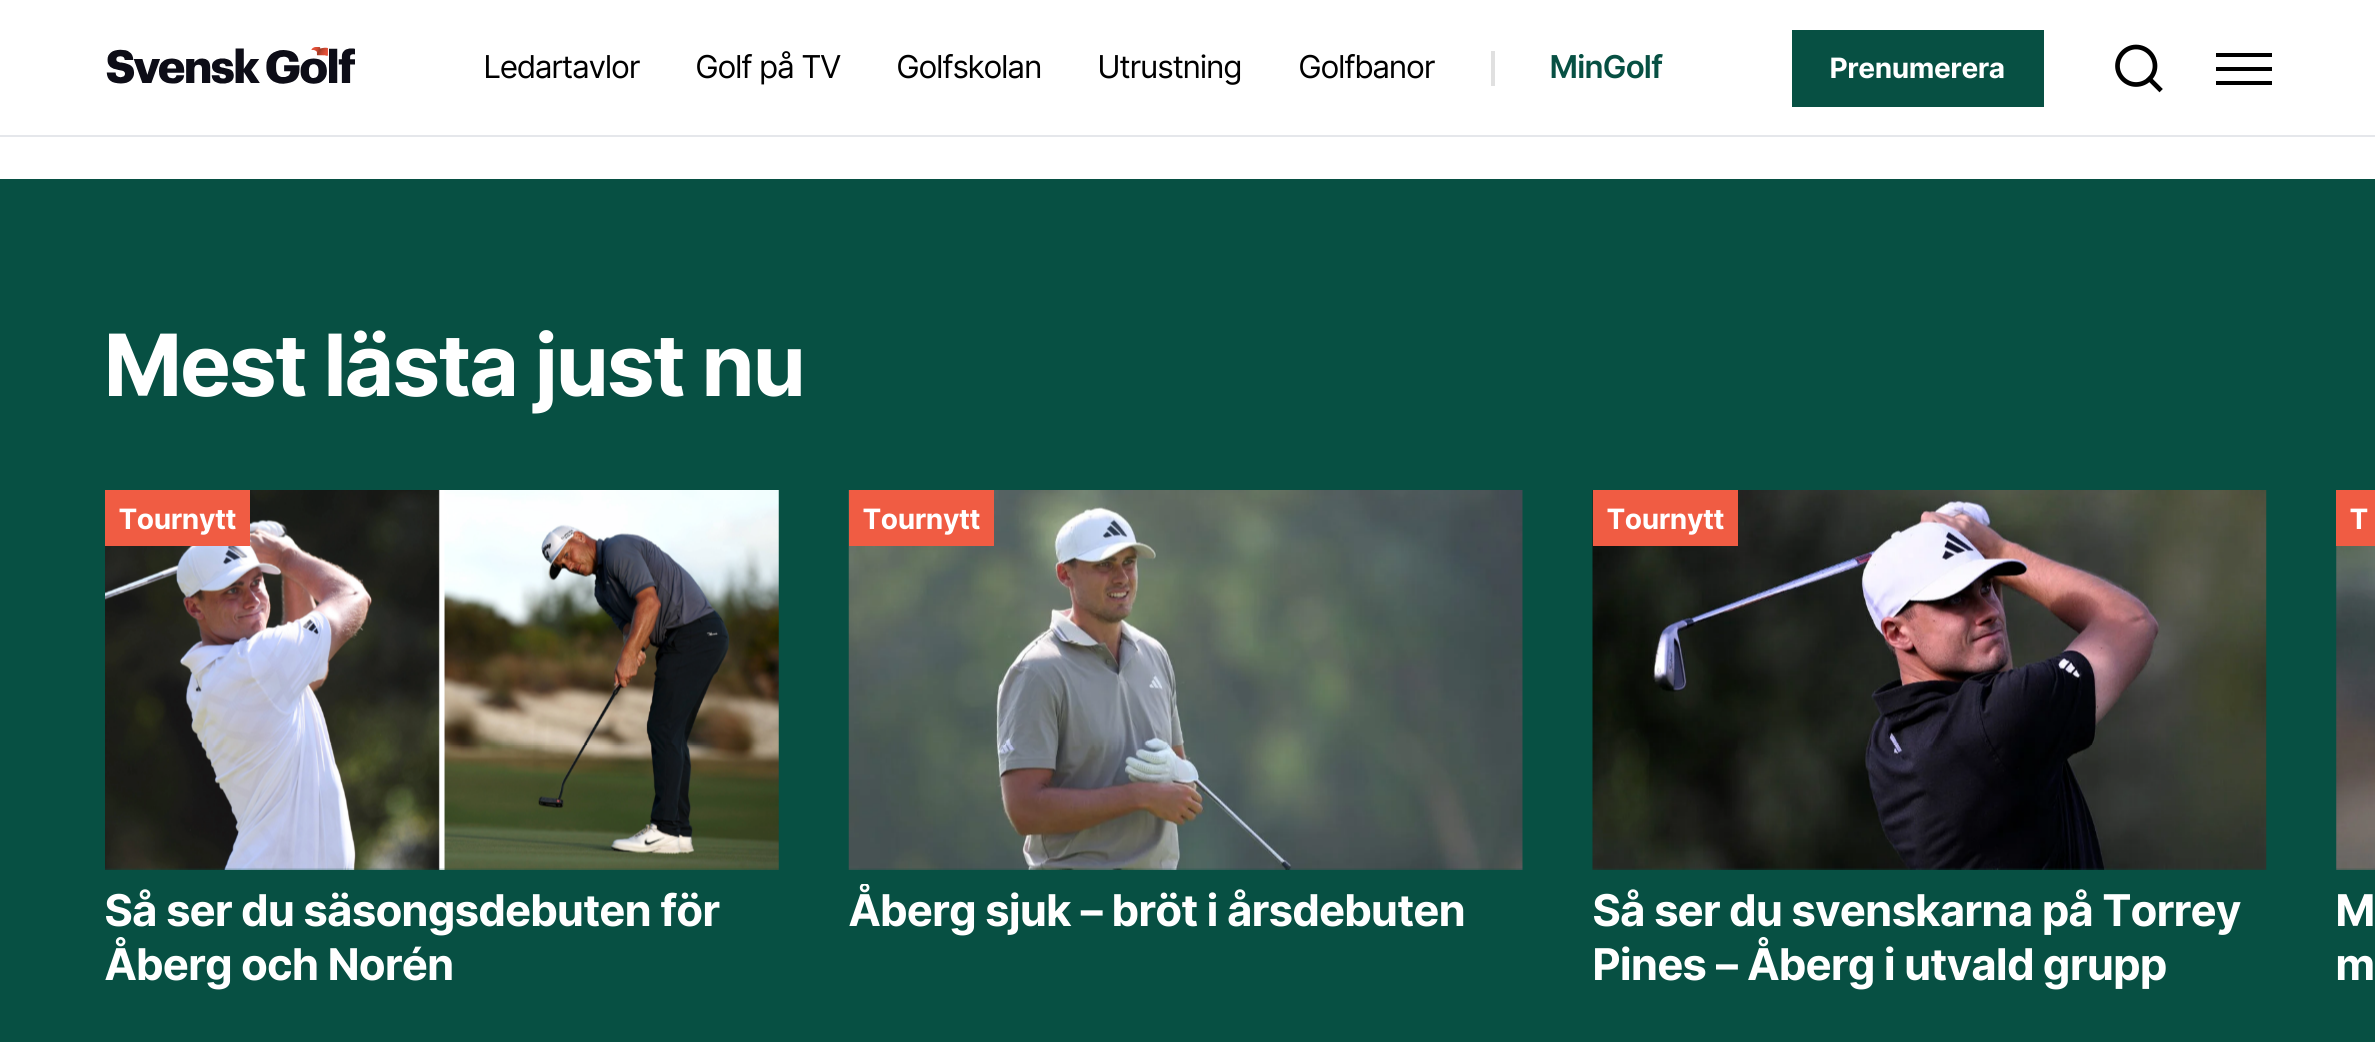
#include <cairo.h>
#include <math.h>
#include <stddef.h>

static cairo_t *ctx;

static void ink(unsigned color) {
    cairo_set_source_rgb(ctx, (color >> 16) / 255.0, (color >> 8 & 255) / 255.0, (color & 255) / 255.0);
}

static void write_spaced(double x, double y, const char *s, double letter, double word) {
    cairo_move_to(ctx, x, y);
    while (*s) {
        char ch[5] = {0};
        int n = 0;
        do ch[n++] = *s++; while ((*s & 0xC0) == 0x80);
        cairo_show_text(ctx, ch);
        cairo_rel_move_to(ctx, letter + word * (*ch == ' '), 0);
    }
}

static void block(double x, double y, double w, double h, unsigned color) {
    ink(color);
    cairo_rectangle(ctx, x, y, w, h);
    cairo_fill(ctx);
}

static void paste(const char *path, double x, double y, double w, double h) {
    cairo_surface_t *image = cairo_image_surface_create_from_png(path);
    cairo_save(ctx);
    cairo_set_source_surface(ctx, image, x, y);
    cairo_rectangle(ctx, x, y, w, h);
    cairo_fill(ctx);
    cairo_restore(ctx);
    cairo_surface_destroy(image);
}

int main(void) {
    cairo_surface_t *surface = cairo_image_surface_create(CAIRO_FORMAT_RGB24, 2375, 1042);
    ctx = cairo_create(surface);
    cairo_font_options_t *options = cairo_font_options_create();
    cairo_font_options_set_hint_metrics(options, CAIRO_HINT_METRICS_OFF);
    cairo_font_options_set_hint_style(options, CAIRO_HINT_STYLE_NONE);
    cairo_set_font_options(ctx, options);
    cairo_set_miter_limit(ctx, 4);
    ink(0xffffff);
    cairo_paint(ctx);
    block(0, 135, 2375, 2, 0xe5e7eb);
    paste("pic1.png", 106, 47, 249, 37);
    cairo_select_font_face(ctx, "Inter Tight", CAIRO_FONT_SLANT_NORMAL, CAIRO_FONT_WEIGHT_NORMAL);
    cairo_set_font_size(ctx, 31.5);
    ink(0x000000);
    write_spaced(484, 78, "Ledartavlor", 0.25, 0);
    write_spaced(696, 78, "Golf på TV", 0.25, 0);
    write_spaced(897, 78, "Golfskolan", 0.25, 0);
    write_spaced(1098, 78, "Utrustning", 0.25, 0);
    write_spaced(1299, 78, "Golfbanor", 0.25, 0);
    block(1491, 51, 4, 35, 0xe0e0e0);
    cairo_select_font_face(ctx, "Inter Tight SemiBold", CAIRO_FONT_SLANT_NORMAL, CAIRO_FONT_WEIGHT_NORMAL);
    ink(0x075043);
    write_spaced(1550, 78, "MinGolf", 0.25, 0);
    block(1792, 30, 252, 77, 0x075043);
    cairo_select_font_face(ctx, "Inter Tight", CAIRO_FONT_SLANT_NORMAL, CAIRO_FONT_WEIGHT_BOLD);
    cairo_set_font_size(ctx, 28);
    ink(0xffffff);
    write_spaced(1830, 78, "Prenumerera", 0.55, 0);
    cairo_new_path(ctx);
    cairo_move_to(ctx, 2136, 84.5);
    cairo_curve_to(ctx, 2146.5, 84.5, 2155, 76, 2155, 66);
    cairo_curve_to(ctx, 2155, 55.5, 2146.5, 47, 2136, 47);
    cairo_curve_to(ctx, 2126, 47, 2117.5, 55.5, 2117.5, 66);
    cairo_curve_to(ctx, 2117.5, 76, 2126, 84.5, 2136, 84.5);
    cairo_close_path(ctx);
    ink(0x000000);
    cairo_set_line_width(ctx, 4.7);
    cairo_set_line_cap(ctx, CAIRO_LINE_CAP_ROUND);
    cairo_set_line_join(ctx, CAIRO_LINE_JOIN_ROUND);
    cairo_stroke(ctx);
    cairo_new_path(ctx);
    cairo_move_to(ctx, 2159.5, 89);
    cairo_line_to(ctx, 2149.5, 79);
    cairo_set_line_cap(ctx, CAIRO_LINE_CAP_SQUARE);
    cairo_stroke(ctx);
    block(2216, 53, 56, 4, 0x000000);
    block(2216, 67, 56, 4, 0x000000);
    block(2216, 81, 56, 4, 0x000000);
    block(0, 179, 2375, 863, 0x075043);
    cairo_set_font_size(ctx, 85.75);
    ink(0xffffff);
    write_spaced(105, 396, "Mest lästa just nu", 0.55, 0);
    paste("pic2.png", 105, 490, 674, 380);
    block(105, 490, 145, 56, 0xf05c43);
    cairo_set_font_size(ctx, 28);
    ink(0xffffff);
    write_spaced(119, 529, "Tournytt", 0.55, 0);
    cairo_set_font_size(ctx, 43.75);
    write_spaced(105, 926, "Så ser du säsongsdebuten för", 0.55, 0);
    write_spaced(105, 980, "Åberg och Norén", 0.55, 0);
    paste("pic3.png", 848, 490, 675, 380);
    block(849, 490, 145, 56, 0xf05c43);
    cairo_set_font_size(ctx, 28);
    ink(0xffffff);
    write_spaced(863, 529, "Tournytt", 0.55, 0);
    cairo_save(ctx);
    cairo_rectangle(ctx, 849, 884, 618, 54);
    cairo_clip(ctx);
    cairo_set_font_size(ctx, 43.75);
    write_spaced(849, 926, "Åberg sjuk – bröt i årsdebuten", 0.55, 0);
    cairo_restore(ctx);
    paste("pic4.png", 1592, 490, 675, 380);
    block(1593, 490, 145, 56, 0xf05c43);
    ink(0xffffff);
    write_spaced(1607, 529, "Tournytt", 0.55, 0);
    cairo_set_font_size(ctx, 43.75);
    write_spaced(1593, 926, "Så ser du svenskarna på Torrey", 0.55, 0);
    write_spaced(1593, 980, "Pines – Åberg i utvald grupp", 0.55, 0);
    block(2336, 490, 39, 56, 0xf05c43);
    cairo_set_font_size(ctx, 28);
    ink(0xffffff);
    write_spaced(2350, 529, "T", 0.55, 0);
    cairo_set_font_size(ctx, 43.75);
    write_spaced(2336, 926, "M", 0.55, 0);
    write_spaced(2336, 980, "m", 0.55, 0);
    paste("pic5.png", 2336, 546, 39, 324);
    cairo_surface_write_to_png(surface, "screenshot.png");
    cairo_font_options_destroy(options);
    cairo_destroy(ctx);
    cairo_surface_destroy(surface);
    return 0;
}
